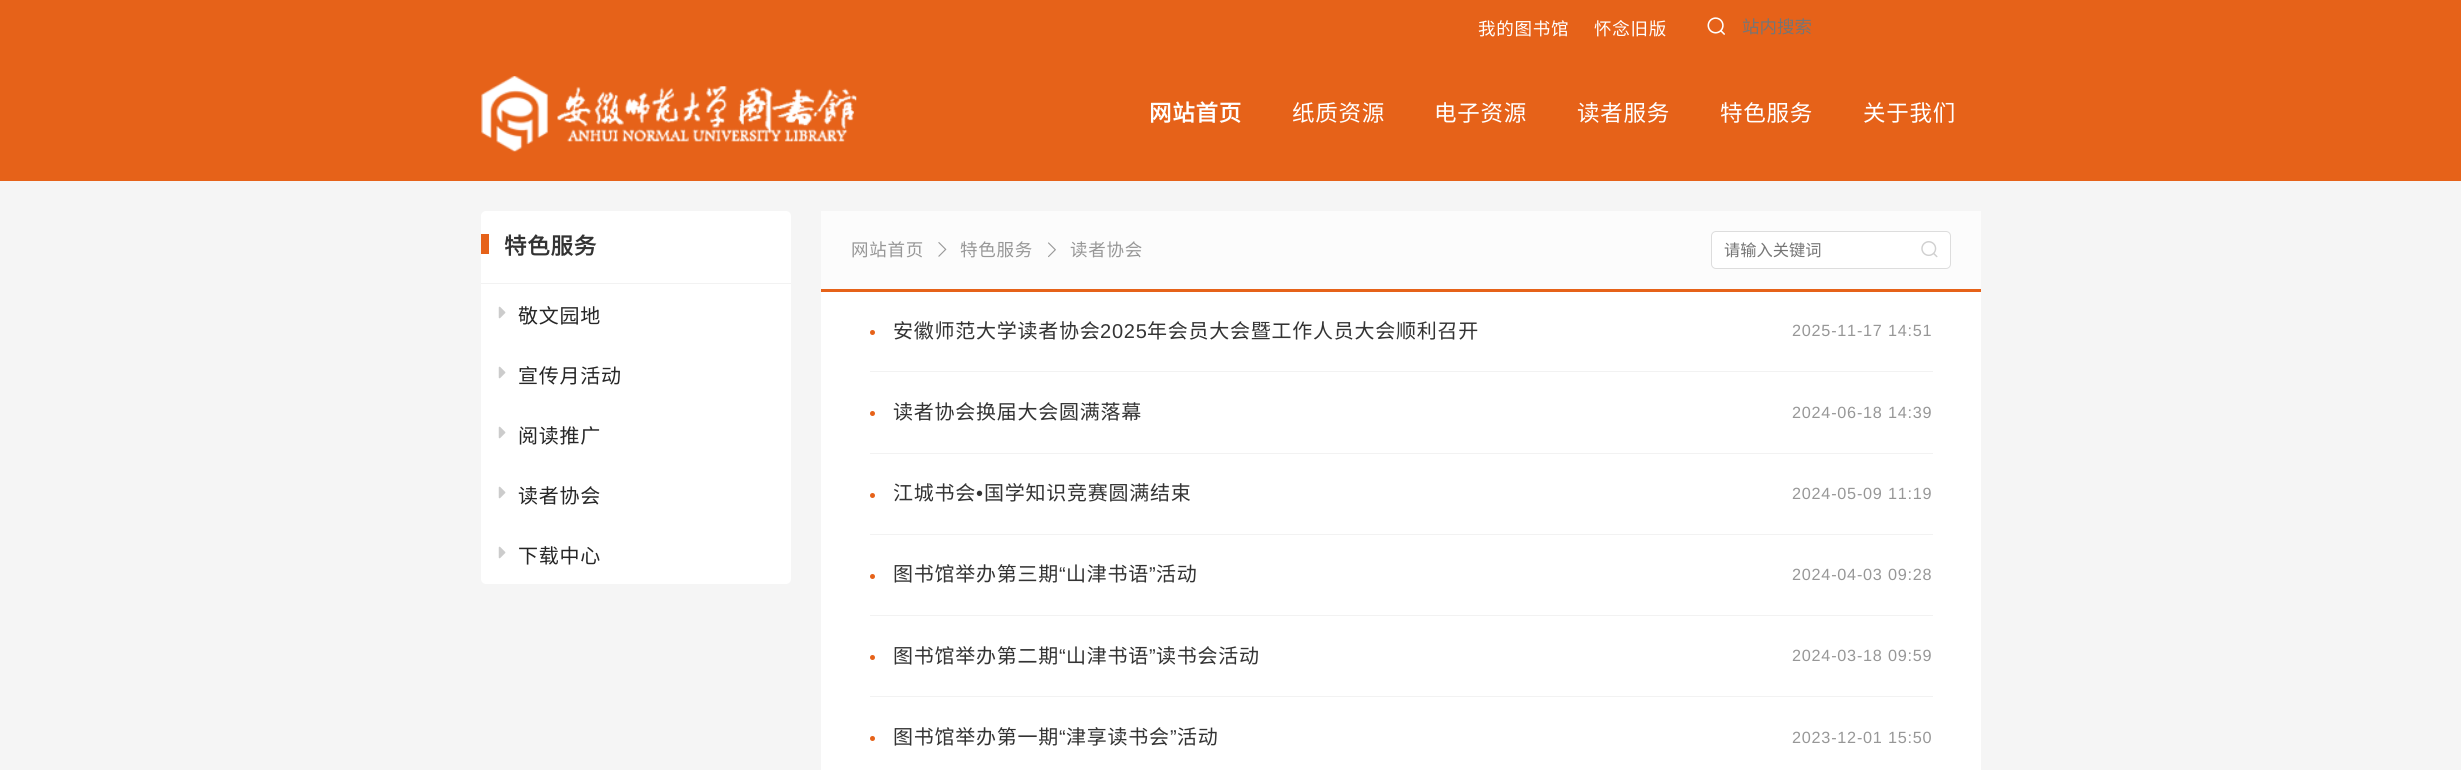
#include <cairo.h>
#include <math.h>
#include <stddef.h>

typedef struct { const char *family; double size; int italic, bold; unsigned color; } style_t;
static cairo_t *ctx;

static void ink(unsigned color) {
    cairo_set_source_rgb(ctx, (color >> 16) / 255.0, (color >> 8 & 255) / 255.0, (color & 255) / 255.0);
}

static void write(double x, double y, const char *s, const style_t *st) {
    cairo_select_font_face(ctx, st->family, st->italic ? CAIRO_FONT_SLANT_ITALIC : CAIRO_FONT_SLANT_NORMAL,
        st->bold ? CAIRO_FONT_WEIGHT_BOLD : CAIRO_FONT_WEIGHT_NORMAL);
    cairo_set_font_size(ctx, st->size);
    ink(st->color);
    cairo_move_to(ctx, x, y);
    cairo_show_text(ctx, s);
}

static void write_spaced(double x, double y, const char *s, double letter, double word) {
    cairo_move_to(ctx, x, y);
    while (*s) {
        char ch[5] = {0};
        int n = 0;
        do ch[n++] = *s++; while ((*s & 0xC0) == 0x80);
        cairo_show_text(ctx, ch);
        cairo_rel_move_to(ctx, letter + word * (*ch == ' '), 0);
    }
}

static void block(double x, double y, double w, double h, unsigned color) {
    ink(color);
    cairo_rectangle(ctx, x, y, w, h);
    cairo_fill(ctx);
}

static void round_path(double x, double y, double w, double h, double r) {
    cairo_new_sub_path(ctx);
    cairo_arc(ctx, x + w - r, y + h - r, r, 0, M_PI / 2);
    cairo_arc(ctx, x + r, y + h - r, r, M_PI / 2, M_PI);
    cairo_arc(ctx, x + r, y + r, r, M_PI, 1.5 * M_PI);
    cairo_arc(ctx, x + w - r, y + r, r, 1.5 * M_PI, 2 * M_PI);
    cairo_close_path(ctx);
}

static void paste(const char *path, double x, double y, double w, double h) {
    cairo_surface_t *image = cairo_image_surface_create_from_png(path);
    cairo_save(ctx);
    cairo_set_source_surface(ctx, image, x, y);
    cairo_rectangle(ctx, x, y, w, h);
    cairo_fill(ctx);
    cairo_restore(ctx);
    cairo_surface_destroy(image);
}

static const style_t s1 = {"Noto Sans CJK SC", 17.5, 0, 0, 0x757575};
static const style_t s2 = {"Noto Sans CJK SC", 16.25, 0, 0, 0x757575};

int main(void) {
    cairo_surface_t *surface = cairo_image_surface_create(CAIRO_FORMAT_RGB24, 2461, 770);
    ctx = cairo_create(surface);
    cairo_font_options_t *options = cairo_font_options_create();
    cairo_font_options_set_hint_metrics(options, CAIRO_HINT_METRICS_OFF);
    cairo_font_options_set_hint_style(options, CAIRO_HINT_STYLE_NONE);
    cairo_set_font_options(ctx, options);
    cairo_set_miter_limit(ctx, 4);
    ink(0xf5f5f5);
    cairo_paint(ctx);
    block(0, 0, 2461, 181, 0xe66219);
    cairo_select_font_face(ctx, "Noto Sans CJK SC", CAIRO_FONT_SLANT_NORMAL, CAIRO_FONT_WEIGHT_NORMAL);
    cairo_set_font_size(ctx, 17.5);
    ink(0xffffff);
    write_spaced(1478, 35, "我的图书馆", 0.75, 0);
    write_spaced(1594, 35, "怀念旧版", 0.75, 0);
    paste("pic1.png", 1707, 17, 18, 18);
    write(1742, 33, "站内搜索", &s1);
    paste("pic2.png", 481, 76, 376, 76);
    cairo_select_font_face(ctx, "Noto Sans CJK SC", CAIRO_FONT_SLANT_NORMAL, CAIRO_FONT_WEIGHT_BOLD);
    cairo_set_font_size(ctx, 22.5);
    ink(0xffffff);
    write_spaced(1149, 121, "网站首页", 0.75, 0);
    cairo_select_font_face(ctx, "Noto Sans CJK SC", CAIRO_FONT_SLANT_NORMAL, CAIRO_FONT_WEIGHT_NORMAL);
    write_spaced(1292, 121, "纸质资源", 0.75, 0);
    write_spaced(1434, 121, "电子资源", 0.75, 0);
    write_spaced(1577, 121, "读者服务", 0.75, 0);
    write_spaced(1720, 121, "特色服务", 0.75, 0);
    write_spaced(1863, 121, "关于我们", 0.75, 0);
    round_path(481, 211, 310, 373, 5);
    cairo_fill(ctx);
    block(481, 283, 310, 1, 0xf2f2f2);
    block(481, 234, 8, 20, 0xe66219);
    cairo_select_font_face(ctx, "Noto Sans CJK SC", CAIRO_FONT_SLANT_NORMAL, CAIRO_FONT_WEIGHT_BOLD);
    ink(0x333333);
    write_spaced(504, 254, "特色服务", 0.75, 0);
    paste("pic3.png", 498, 306, 8, 13);
    cairo_select_font_face(ctx, "Noto Sans CJK SC", CAIRO_FONT_SLANT_NORMAL, CAIRO_FONT_WEIGHT_NORMAL);
    cairo_set_font_size(ctx, 20);
    ink(0x262626);
    write_spaced(518, 323, "敬文园地", 0.75, 0);
    paste("pic3.png", 498, 366, 8, 13);
    write_spaced(518, 383, "宣传月活动", 0.75, 0);
    paste("pic3.png", 498, 426, 8, 13);
    write_spaced(518, 443, "阅读推广", 0.75, 0);
    paste("pic3.png", 498, 486, 8, 13);
    write_spaced(518, 503, "读者协会", 0.75, 0);
    paste("pic3.png", 498, 546, 8, 13);
    write_spaced(518, 563, "下载中心", 0.75, 0);
    block(821, 292, 1160, 478, 0xffffff);
    block(821, 211, 1160, 78, 0xfcfcfc);
    block(821, 289, 1160, 3, 0xe66219);
    cairo_set_font_size(ctx, 17.5);
    ink(0x979797);
    write_spaced(851, 256, "网站首页", 0.75, 0);
    paste("pic4.png", 938, 242, 9, 15);
    write_spaced(960, 256, "特色服务", 0.75, 0);
    paste("pic5.png", 1048, 242, 8, 16);
    write_spaced(1070, 256, "读者协会", 0.75, 0);
    ink(0xffffff);
    round_path(1711.5, 231.5, 239, 37, 4.5);
    cairo_fill_preserve(ctx);
    ink(0xdddddd);
    cairo_set_line_width(ctx, 1);
    cairo_stroke(ctx);
    write(1724, 256, "请输入关键词", &s2);
    paste("pic6.png", 1921, 241, 17, 17);
    block(870, 371, 1063, 1, 0xf2f2f2);
    ink(0xe66219);
    cairo_arc(ctx, 872.5, 332.5, 2.5, 0, 2 * M_PI);
    cairo_fill(ctx);
    cairo_set_font_size(ctx, 20);
    ink(0x333333);
    write_spaced(893, 338, "安徽师范大学读者协会", 0.75, 0);
    cairo_select_font_face(ctx, "Liberation Sans", CAIRO_FONT_SLANT_NORMAL, CAIRO_FONT_WEIGHT_NORMAL);
    write_spaced(1100, 338, "2025", 0.75, 0);
    cairo_select_font_face(ctx, "Noto Sans CJK SC", CAIRO_FONT_SLANT_NORMAL, CAIRO_FONT_WEIGHT_NORMAL);
    write_spaced(1147, 338, "年会员大会暨工作人员大会顺利召开", 0.75, 0);
    cairo_select_font_face(ctx, "Liberation Sans", CAIRO_FONT_SLANT_NORMAL, CAIRO_FONT_WEIGHT_NORMAL);
    cairo_set_font_size(ctx, 16.25);
    ink(0x979797);
    write_spaced(1792, 336, "2025-11-17 14:51", 0.75, 0);
    block(870, 453, 1063, 1, 0xf2f2f2);
    ink(0xe66219);
    cairo_new_path(ctx);
    cairo_arc(ctx, 872.5, 413.5, 2.5, 0, 2 * M_PI);
    cairo_fill(ctx);
    cairo_select_font_face(ctx, "Noto Sans CJK SC", CAIRO_FONT_SLANT_NORMAL, CAIRO_FONT_WEIGHT_NORMAL);
    cairo_set_font_size(ctx, 20);
    ink(0x333333);
    write_spaced(893, 419, "读者协会换届大会圆满落幕", 0.75, 0);
    cairo_select_font_face(ctx, "Liberation Sans", CAIRO_FONT_SLANT_NORMAL, CAIRO_FONT_WEIGHT_NORMAL);
    cairo_set_font_size(ctx, 16.25);
    ink(0x979797);
    write_spaced(1792, 418, "2024-06-18 14:39", 0.75, 0);
    block(870, 534, 1063, 1, 0xf2f2f2);
    ink(0xe66219);
    cairo_new_path(ctx);
    cairo_arc(ctx, 872.5, 495.5, 2.5, 0, 2 * M_PI);
    cairo_fill(ctx);
    cairo_select_font_face(ctx, "Noto Sans CJK SC", CAIRO_FONT_SLANT_NORMAL, CAIRO_FONT_WEIGHT_NORMAL);
    cairo_set_font_size(ctx, 20);
    ink(0x333333);
    write_spaced(893, 500, "江城书会", 0.75, 0);
    cairo_select_font_face(ctx, "Liberation Sans", CAIRO_FONT_SLANT_NORMAL, CAIRO_FONT_WEIGHT_NORMAL);
    write_spaced(976, 500, "•", 0.75, 0);
    cairo_select_font_face(ctx, "Noto Sans CJK SC", CAIRO_FONT_SLANT_NORMAL, CAIRO_FONT_WEIGHT_NORMAL);
    write_spaced(984, 500, "国学知识竞赛圆满结束", 0.75, 0);
    cairo_select_font_face(ctx, "Liberation Sans", CAIRO_FONT_SLANT_NORMAL, CAIRO_FONT_WEIGHT_NORMAL);
    cairo_set_font_size(ctx, 16.25);
    ink(0x979797);
    write_spaced(1792, 499, "2024-05-09 11:19", 0.75, 0);
    block(870, 615, 1063, 1, 0xf2f2f2);
    cairo_select_font_face(ctx, "Noto Sans CJK SC", CAIRO_FONT_SLANT_NORMAL, CAIRO_FONT_WEIGHT_NORMAL);
    cairo_set_font_size(ctx, 20);
    ink(0x333333);
    write_spaced(893, 581, "图书馆举办第三期", 0.75, 0);
    cairo_select_font_face(ctx, "Liberation Sans", CAIRO_FONT_SLANT_NORMAL, CAIRO_FONT_WEIGHT_NORMAL);
    write_spaced(1059, 581, "“", 0.75, 0);
    cairo_select_font_face(ctx, "Noto Sans CJK SC", CAIRO_FONT_SLANT_NORMAL, CAIRO_FONT_WEIGHT_NORMAL);
    write_spaced(1066, 581, "山津书语", 0.75, 0);
    cairo_select_font_face(ctx, "Liberation Sans", CAIRO_FONT_SLANT_NORMAL, CAIRO_FONT_WEIGHT_NORMAL);
    write_spaced(1149, 581, "”", 0.75, 0);
    cairo_select_font_face(ctx, "Noto Sans CJK SC", CAIRO_FONT_SLANT_NORMAL, CAIRO_FONT_WEIGHT_NORMAL);
    write_spaced(1156, 581, "活动", 0.75, 0);
    ink(0xe66219);
    cairo_new_path(ctx);
    cairo_arc(ctx, 872.5, 576.5, 2.5, 0, 2 * M_PI);
    cairo_fill(ctx);
    cairo_select_font_face(ctx, "Liberation Sans", CAIRO_FONT_SLANT_NORMAL, CAIRO_FONT_WEIGHT_NORMAL);
    cairo_set_font_size(ctx, 16.25);
    ink(0x979797);
    write_spaced(1792, 580, "2024-04-03 09:28", 0.75, 0);
    block(870, 696, 1063, 1, 0xf2f2f2);
    cairo_select_font_face(ctx, "Noto Sans CJK SC", CAIRO_FONT_SLANT_NORMAL, CAIRO_FONT_WEIGHT_NORMAL);
    cairo_set_font_size(ctx, 20);
    ink(0x333333);
    write_spaced(893, 663, "图书馆举办第二期", 0.75, 0);
    cairo_select_font_face(ctx, "Liberation Sans", CAIRO_FONT_SLANT_NORMAL, CAIRO_FONT_WEIGHT_NORMAL);
    write_spaced(1059, 663, "“", 0.75, 0);
    cairo_select_font_face(ctx, "Noto Sans CJK SC", CAIRO_FONT_SLANT_NORMAL, CAIRO_FONT_WEIGHT_NORMAL);
    write_spaced(1066, 663, "山津书语", 0.75, 0);
    cairo_select_font_face(ctx, "Liberation Sans", CAIRO_FONT_SLANT_NORMAL, CAIRO_FONT_WEIGHT_NORMAL);
    write_spaced(1149, 663, "”", 0.75, 0);
    cairo_select_font_face(ctx, "Noto Sans CJK SC", CAIRO_FONT_SLANT_NORMAL, CAIRO_FONT_WEIGHT_NORMAL);
    write_spaced(1156, 663, "读书会活动", 0.75, 0);
    ink(0xe66219);
    cairo_new_path(ctx);
    cairo_arc(ctx, 872.5, 657.5, 2.5, 0, 2 * M_PI);
    cairo_fill(ctx);
    cairo_select_font_face(ctx, "Liberation Sans", CAIRO_FONT_SLANT_NORMAL, CAIRO_FONT_WEIGHT_NORMAL);
    cairo_set_font_size(ctx, 16.25);
    ink(0x979797);
    write_spaced(1792, 661, "2024-03-18 09:59", 0.75, 0);
    cairo_select_font_face(ctx, "Noto Sans CJK SC", CAIRO_FONT_SLANT_NORMAL, CAIRO_FONT_WEIGHT_NORMAL);
    cairo_set_font_size(ctx, 20);
    ink(0x333333);
    write_spaced(893, 744, "图书馆举办第一期", 0.75, 0);
    cairo_select_font_face(ctx, "Liberation Sans", CAIRO_FONT_SLANT_NORMAL, CAIRO_FONT_WEIGHT_NORMAL);
    write_spaced(1059, 744, "“", 0.75, 0);
    cairo_select_font_face(ctx, "Noto Sans CJK SC", CAIRO_FONT_SLANT_NORMAL, CAIRO_FONT_WEIGHT_NORMAL);
    write_spaced(1066, 744, "津享读书会", 0.75, 0);
    cairo_select_font_face(ctx, "Liberation Sans", CAIRO_FONT_SLANT_NORMAL, CAIRO_FONT_WEIGHT_NORMAL);
    write_spaced(1170, 744, "”", 0.75, 0);
    cairo_select_font_face(ctx, "Noto Sans CJK SC", CAIRO_FONT_SLANT_NORMAL, CAIRO_FONT_WEIGHT_NORMAL);
    write_spaced(1177, 744, "活动", 0.75, 0);
    ink(0xe66219);
    cairo_new_path(ctx);
    cairo_arc(ctx, 872.5, 738.5, 2.5, 0, 2 * M_PI);
    cairo_fill(ctx);
    cairo_select_font_face(ctx, "Liberation Sans", CAIRO_FONT_SLANT_NORMAL, CAIRO_FONT_WEIGHT_NORMAL);
    cairo_set_font_size(ctx, 16.25);
    ink(0x979797);
    write_spaced(1792, 743, "2023-12-01 15:50", 0.75, 0);
    cairo_surface_write_to_png(surface, "screenshot.png");
    cairo_font_options_destroy(options);
    cairo_destroy(ctx);
    cairo_surface_destroy(surface);
    return 0;
}
